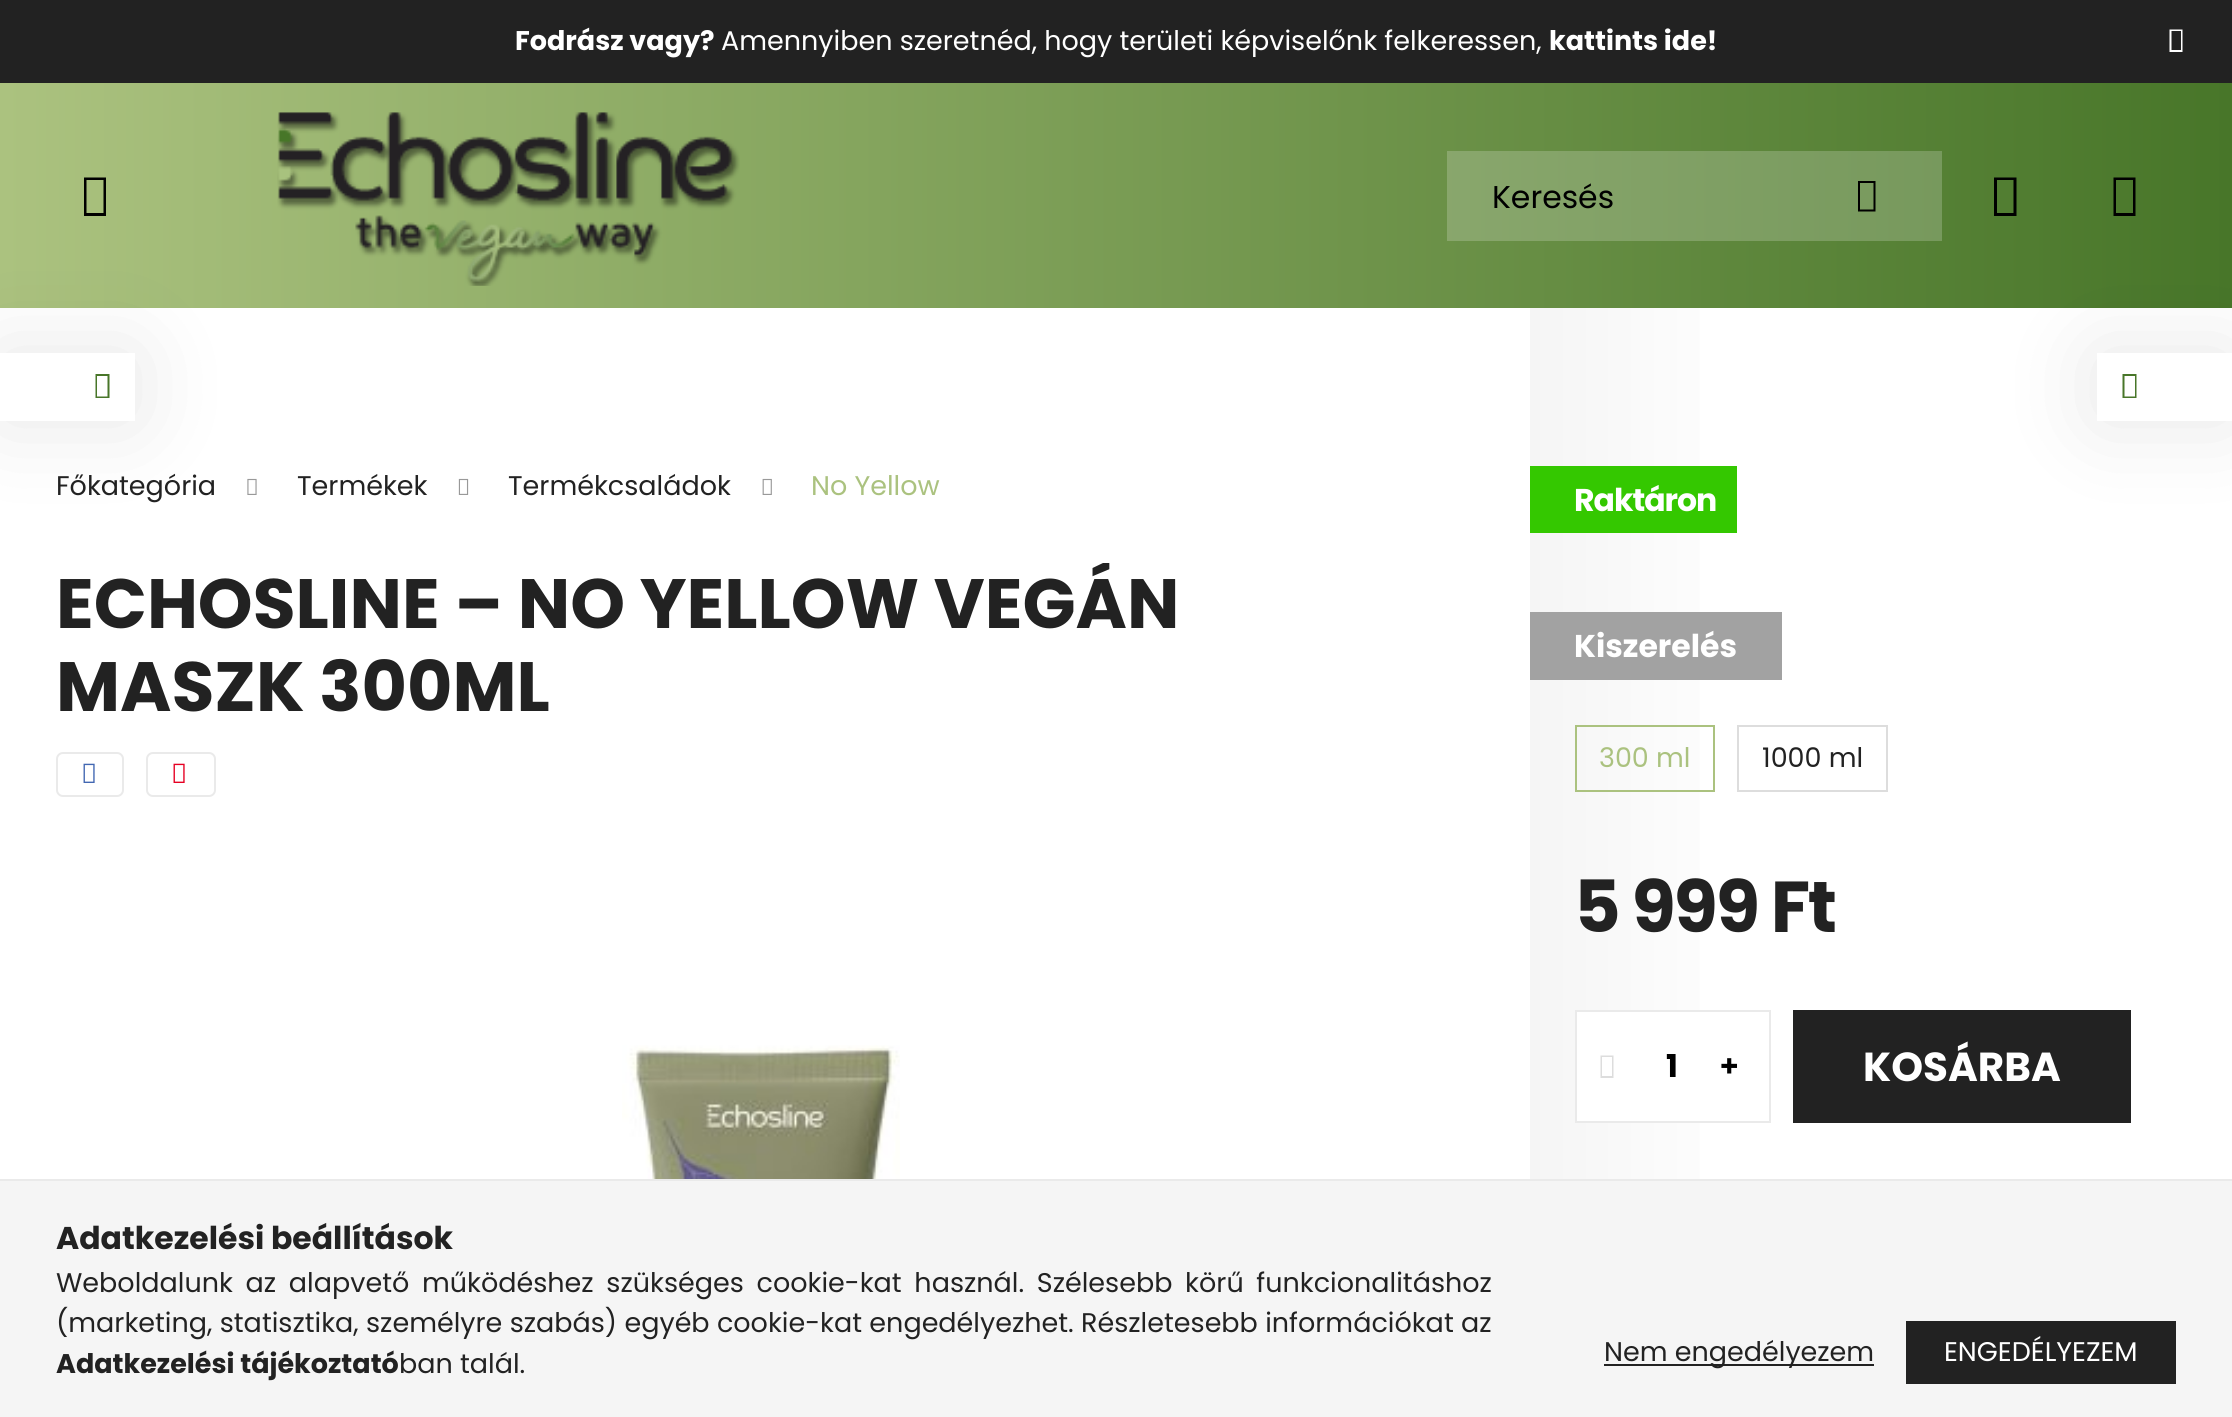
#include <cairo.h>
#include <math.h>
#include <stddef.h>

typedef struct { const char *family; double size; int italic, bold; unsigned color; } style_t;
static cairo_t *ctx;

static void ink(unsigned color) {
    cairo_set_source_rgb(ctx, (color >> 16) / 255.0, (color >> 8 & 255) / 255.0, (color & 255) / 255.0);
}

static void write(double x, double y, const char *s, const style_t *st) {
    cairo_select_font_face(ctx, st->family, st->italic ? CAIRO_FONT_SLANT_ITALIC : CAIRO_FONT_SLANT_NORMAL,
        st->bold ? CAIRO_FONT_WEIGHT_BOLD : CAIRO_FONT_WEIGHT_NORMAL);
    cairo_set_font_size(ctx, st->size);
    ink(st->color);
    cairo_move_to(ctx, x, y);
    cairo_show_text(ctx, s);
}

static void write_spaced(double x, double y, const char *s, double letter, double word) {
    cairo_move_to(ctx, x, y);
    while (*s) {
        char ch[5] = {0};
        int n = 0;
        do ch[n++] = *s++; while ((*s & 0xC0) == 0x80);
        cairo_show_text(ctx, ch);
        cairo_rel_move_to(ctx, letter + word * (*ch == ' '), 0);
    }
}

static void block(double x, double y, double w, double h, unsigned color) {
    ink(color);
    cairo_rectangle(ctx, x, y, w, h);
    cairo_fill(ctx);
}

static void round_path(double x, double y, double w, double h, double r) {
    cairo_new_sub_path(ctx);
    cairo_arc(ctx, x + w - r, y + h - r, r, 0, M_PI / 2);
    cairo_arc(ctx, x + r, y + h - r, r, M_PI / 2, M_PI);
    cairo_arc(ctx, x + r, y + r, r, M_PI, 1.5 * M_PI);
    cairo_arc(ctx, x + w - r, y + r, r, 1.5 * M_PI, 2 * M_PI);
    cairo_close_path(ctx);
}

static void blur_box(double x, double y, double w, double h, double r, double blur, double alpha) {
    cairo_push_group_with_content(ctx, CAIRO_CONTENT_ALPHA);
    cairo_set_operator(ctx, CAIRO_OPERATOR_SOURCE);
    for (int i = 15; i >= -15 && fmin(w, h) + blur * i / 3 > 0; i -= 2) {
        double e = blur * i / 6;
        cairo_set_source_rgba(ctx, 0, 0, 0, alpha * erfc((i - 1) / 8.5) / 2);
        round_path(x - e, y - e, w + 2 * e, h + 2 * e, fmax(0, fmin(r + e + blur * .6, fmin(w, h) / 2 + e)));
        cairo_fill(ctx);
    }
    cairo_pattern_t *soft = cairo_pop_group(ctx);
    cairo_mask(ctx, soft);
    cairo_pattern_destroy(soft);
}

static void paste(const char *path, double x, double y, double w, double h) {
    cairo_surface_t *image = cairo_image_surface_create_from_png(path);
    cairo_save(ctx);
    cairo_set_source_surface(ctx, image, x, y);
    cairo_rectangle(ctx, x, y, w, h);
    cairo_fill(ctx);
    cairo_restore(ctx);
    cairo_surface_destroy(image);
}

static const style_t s1 = {"Poppins", 27, 0, 1, 0xffffff};
static const style_t s2 = {"Poppins", 27, 0, 0, 0xffffff};
static const style_t s3 = {"Poppins", 31.5, 0, 0, 0x000000};
static const style_t s4 = {"Poppins", 27, 0, 0, 0x222222};
static const style_t s5 = {"Poppins", 27, 0, 0, 0xabc27f};
static const style_t s6 = {"Poppins", 69.75, 0, 1, 0x222222};
static const style_t s7 = {"Poppins", 31.5, 0, 1, 0xffffff};
static const style_t s8 = {"Poppins", 31.5, 0, 1, 0x000000};
static const style_t s9 = {"Noto Sans Black", 31.5, 0, 0, 0x000000};
static const style_t s10 = {"Poppins", 40.5, 0, 1, 0xffffff};
static const style_t s11 = {"Poppins", 31.5, 0, 1, 0x222222};
static const style_t s12 = {"Poppins", 27, 0, 1, 0x222222};

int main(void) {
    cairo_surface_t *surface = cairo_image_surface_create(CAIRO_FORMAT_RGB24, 2232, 1417);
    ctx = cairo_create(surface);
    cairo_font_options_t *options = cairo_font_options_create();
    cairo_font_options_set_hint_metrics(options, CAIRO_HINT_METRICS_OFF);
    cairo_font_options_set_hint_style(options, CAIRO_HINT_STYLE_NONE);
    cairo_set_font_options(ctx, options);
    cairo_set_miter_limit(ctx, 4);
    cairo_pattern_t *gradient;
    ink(0xffffff);
    cairo_paint(ctx);
    block(0, 0, 2232, 83, 0x222222);
    write(515, 50, "Fodrász vagy?", &s1);
    write(721, 50, "Amennyiben szeretnéd, hogy területi képviselőnk felkeressen,", &s2);
    write(1549, 50, "kattints ide!", &s1);
    cairo_new_path(ctx);
    cairo_move_to(ctx, 2169.5, 52);
    cairo_line_to(ctx, 2169.5, 29.5);
    cairo_line_to(ctx, 2182.5, 29.5);
    cairo_line_to(ctx, 2182.5, 52);
    cairo_close_path(ctx);
    cairo_move_to(ctx, 2171.5, 50);
    cairo_line_to(ctx, 2181, 50);
    cairo_line_to(ctx, 2181, 31);
    cairo_line_to(ctx, 2171.5, 31);
    cairo_close_path(ctx);
    cairo_fill(ctx);
    gradient = cairo_pattern_create_linear(0, 196, 2232, 196);
    cairo_pattern_add_color_stop_rgba(gradient, 0, 0.671, 0.761, 0.498, 1);
    cairo_pattern_add_color_stop_rgba(gradient, 1, 0.282, 0.463, 0.161, 1);
    cairo_set_source(ctx, gradient);
    cairo_pattern_destroy(gradient);
    cairo_rectangle(ctx, 0, 83, 2232, 225);
    cairo_fill(ctx);
    gradient = cairo_pattern_create_linear(0, 196, 2232, 196);
    cairo_pattern_add_color_stop_rgba(gradient, 0, 0.737, 0.808, 0.6, 1);
    cairo_pattern_add_color_stop_rgba(gradient, 1, 0.427, 0.569, 0.329, 1);
    cairo_set_source(ctx, gradient);
    cairo_pattern_destroy(gradient);
    cairo_rectangle(ctx, 1447, 151, 495, 90);
    cairo_fill(ctx);
    ink(0x000000);
    cairo_new_path(ctx);
    cairo_move_to(ctx, 84, 216);
    cairo_line_to(ctx, 84, 177.5);
    cairo_line_to(ctx, 106, 177.5);
    cairo_line_to(ctx, 106, 216);
    cairo_close_path(ctx);
    cairo_move_to(ctx, 86.5, 213);
    cairo_line_to(ctx, 103.5, 213);
    cairo_line_to(ctx, 103.5, 180);
    cairo_line_to(ctx, 86.5, 180);
    cairo_close_path(ctx);
    cairo_fill(ctx);
    paste("pic1.png", 277, 112, 463, 174);
    write(1492, 208, "Keresés", &s3);
    cairo_new_path(ctx);
    cairo_move_to(ctx, 1858, 211.5);
    cairo_line_to(ctx, 1858, 181);
    cairo_line_to(ctx, 1875.5, 181);
    cairo_line_to(ctx, 1875.5, 211.5);
    cairo_close_path(ctx);
    cairo_move_to(ctx, 1860, 209.5);
    cairo_line_to(ctx, 1873.5, 209.5);
    cairo_line_to(ctx, 1873.5, 183);
    cairo_line_to(ctx, 1860, 183);
    cairo_close_path(ctx);
    cairo_fill(ctx);
    cairo_new_path(ctx);
    cairo_move_to(ctx, 1994, 216);
    cairo_line_to(ctx, 1994, 177.5);
    cairo_line_to(ctx, 2016.5, 177.5);
    cairo_line_to(ctx, 2016.5, 216);
    cairo_close_path(ctx);
    cairo_move_to(ctx, 1997, 213);
    cairo_line_to(ctx, 2013.5, 213);
    cairo_line_to(ctx, 2013.5, 180);
    cairo_line_to(ctx, 1997, 180);
    cairo_close_path(ctx);
    cairo_fill(ctx);
    cairo_new_path(ctx);
    cairo_move_to(ctx, 2113.5, 216);
    cairo_line_to(ctx, 2113.5, 177.5);
    cairo_line_to(ctx, 2135.5, 177.5);
    cairo_line_to(ctx, 2135.5, 216);
    cairo_close_path(ctx);
    cairo_move_to(ctx, 2116, 213);
    cairo_line_to(ctx, 2133, 213);
    cairo_line_to(ctx, 2133, 180);
    cairo_line_to(ctx, 2116, 180);
    cairo_close_path(ctx);
    cairo_fill(ctx);
    paste("pic2.png", 247, 478, 10, 17);
    ink(0x000000);
    blur_box(0, 353, 135, 68, 0, 45, 0.1);
    block(0, 353, 135, 68, 0xffffff);
    ink(0x487629);
    cairo_new_path(ctx);
    cairo_move_to(ctx, 95.5, 398);
    cairo_line_to(ctx, 95.5, 374);
    cairo_line_to(ctx, 109.5, 374);
    cairo_line_to(ctx, 109.5, 398);
    cairo_close_path(ctx);
    cairo_move_to(ctx, 97, 396.5);
    cairo_line_to(ctx, 107.5, 396.5);
    cairo_line_to(ctx, 107.5, 376);
    cairo_line_to(ctx, 97, 376);
    cairo_close_path(ctx);
    cairo_fill(ctx);
    ink(0x000000);
    blur_box(2097, 353, 135, 68, 0, 45, 0.1);
    block(2097, 353, 135, 68, 0xffffff);
    ink(0x487629);
    cairo_new_path(ctx);
    cairo_move_to(ctx, 2122.5, 398);
    cairo_line_to(ctx, 2122.5, 374);
    cairo_line_to(ctx, 2136.5, 374);
    cairo_line_to(ctx, 2136.5, 398);
    cairo_close_path(ctx);
    cairo_move_to(ctx, 2124.5, 396.5);
    cairo_line_to(ctx, 2135, 396.5);
    cairo_line_to(ctx, 2135, 376);
    cairo_line_to(ctx, 2124.5, 376);
    cairo_close_path(ctx);
    cairo_fill(ctx);
    write(56, 495, "Főkategória", &s4);
    write(297, 495, "Termékek", &s4);
    paste("pic3.png", 458, 478, 11, 17);
    write(508, 495, "Termékcsaládok", &s4);
    paste("pic4.png", 762, 478, 10, 17);
    write(811, 495, "No Yellow", &s5);
    cairo_save(ctx);
    cairo_rectangle(ctx, 56, 563, 1384, 166);
    cairo_clip(ctx);
    write(56, 628, "ECHOSLINE – NO YELLOW VEGÁN", &s6);
    cairo_restore(ctx);
    write(56, 711, "MASZK 300ML", &s6);
    round_path(57, 753, 66, 43, 6);
    ink(0xeaeaea);
    cairo_stroke(ctx);
    paste("pic5.png", 83, 763, 12, 20);
    round_path(147, 753, 68, 43, 6);
    cairo_stroke(ctx);
    paste("pic6.png", 173, 763, 12, 20);
    paste("pic7.png", 622, 1045, 278, 134);
    gradient = cairo_pattern_create_linear(1530, 1274, 2176, 1274);
    cairo_pattern_add_color_stop_rgba(gradient, 0, 0.961, 0.961, 0.961, 1);
    cairo_pattern_add_color_stop_rgba(gradient, 0.35, 1, 1, 1, 1);
    cairo_pattern_add_color_stop_rgba(gradient, 1, 1, 1, 1, 1);
    cairo_set_source(ctx, gradient);
    cairo_pattern_destroy(gradient);
    cairo_rectangle(ctx, 1530, 308, 170, 871);
    cairo_fill(ctx);
    block(1530, 466, 207, 67, 0x34c800);
    cairo_set_font_size(ctx, 31.5);
    ink(0xffffff);
    write_spaced(1574, 511, "Raktáron", -1, 0);
    block(1530, 612, 252, 68, 0xa2a2a2);
    write(1574, 657, "Kiszerelés", &s7);
    cairo_rectangle(ctx, 1576, 726, 138, 65);
    ink(0xabc27f);
    cairo_stroke(ctx);
    write(1599, 767, "300 ml", &s5);
    cairo_rectangle(ctx, 1738, 726, 149, 65);
    ink(0xdddddd);
    cairo_stroke(ctx);
    write(1762, 767, "1000 ml", &s4);
    cairo_select_font_face(ctx, "Poppins", CAIRO_FONT_SLANT_NORMAL, CAIRO_FONT_WEIGHT_BOLD);
    cairo_set_font_size(ctx, 72);
    write_spaced(1574, 932, "5 999 Ft", -2.25, 0);
    block(1577, 1012, 123, 109, 0xffffff);
    cairo_rectangle(ctx, 1576, 1011, 194, 111);
    ink(0xeaeaea);
    cairo_stroke(ctx);
    ink(0xdddddd);
    cairo_new_path(ctx);
    cairo_move_to(ctx, 1600.5, 1078);
    cairo_line_to(ctx, 1600.5, 1055.5);
    cairo_line_to(ctx, 1613.5, 1055.5);
    cairo_line_to(ctx, 1613.5, 1078);
    cairo_close_path(ctx);
    cairo_move_to(ctx, 1602, 1076);
    cairo_line_to(ctx, 1612, 1076);
    cairo_line_to(ctx, 1612, 1057);
    cairo_line_to(ctx, 1602, 1057);
    cairo_close_path(ctx);
    cairo_fill(ctx);
    write(1666, 1077, "1", &s8);
    write(1720, 1077, "+", &s9);
    gradient = cairo_pattern_create_linear(1118, 1067, 2131, 1067);
    cairo_pattern_add_color_stop_rgba(gradient, 0, 0.671, 0.761, 0.498, 1);
    cairo_pattern_add_color_stop_rgba(gradient, 0.33, 0.282, 0.463, 0.161, 1);
    cairo_pattern_add_color_stop_rgba(gradient, 0.67, 0.133, 0.133, 0.133, 1);
    cairo_pattern_add_color_stop_rgba(gradient, 1, 0.133, 0.133, 0.133, 1);
    cairo_set_source(ctx, gradient);
    cairo_pattern_destroy(gradient);
    cairo_rectangle(ctx, 1793, 1010, 338, 113);
    cairo_fill(ctx);
    write(1863, 1081, "KOSÁRBA", &s10);
    block(0, 1181, 2232, 236, 0xf5f5f5);
    block(0, 1179, 2232, 2, 0xeaeaea);
    write(56, 1249, "Adatkezelési beállítások", &s11);
    cairo_select_font_face(ctx, "Poppins", CAIRO_FONT_SLANT_NORMAL, CAIRO_FONT_WEIGHT_NORMAL);
    cairo_set_font_size(ctx, 27);
    write_spaced(56, 1292, "Weboldalunk az alapvető működéshez szükséges cookie-kat használ. Szélesebb körű funkcionalitáshoz", 0, 5.5);
    write_spaced(56, 1332, "(marketing, statisztika, személyre szabás) egyéb cookie-kat engedélyezhet. Részletesebb információkat az", 0, 0.1);
    write(56, 1373, "Adatkezelési tájékoztató", &s12);
    write(399, 1373, "ban talál.", &s4);
    block(1604, 1364, 270, 2, 0x222222);
    write(1604, 1361, "Nem engedélyezem", &s4);
    gradient = cairo_pattern_create_linear(1366, 1352, 2176, 1352);
    cairo_pattern_add_color_stop_rgba(gradient, 0, 0.671, 0.761, 0.498, 1);
    cairo_pattern_add_color_stop_rgba(gradient, 0.33, 0.282, 0.463, 0.161, 1);
    cairo_pattern_add_color_stop_rgba(gradient, 0.67, 0.133, 0.133, 0.133, 1);
    cairo_pattern_add_color_stop_rgba(gradient, 1, 0.133, 0.133, 0.133, 1);
    cairo_set_source(ctx, gradient);
    cairo_pattern_destroy(gradient);
    cairo_rectangle(ctx, 1906, 1321, 270, 63);
    cairo_fill(ctx);
    write(1944, 1361, "ENGEDÉLYEZEM", &s2);
    cairo_surface_write_to_png(surface, "screenshot.png");
    cairo_font_options_destroy(options);
    cairo_destroy(ctx);
    cairo_surface_destroy(surface);
    return 0;
}
